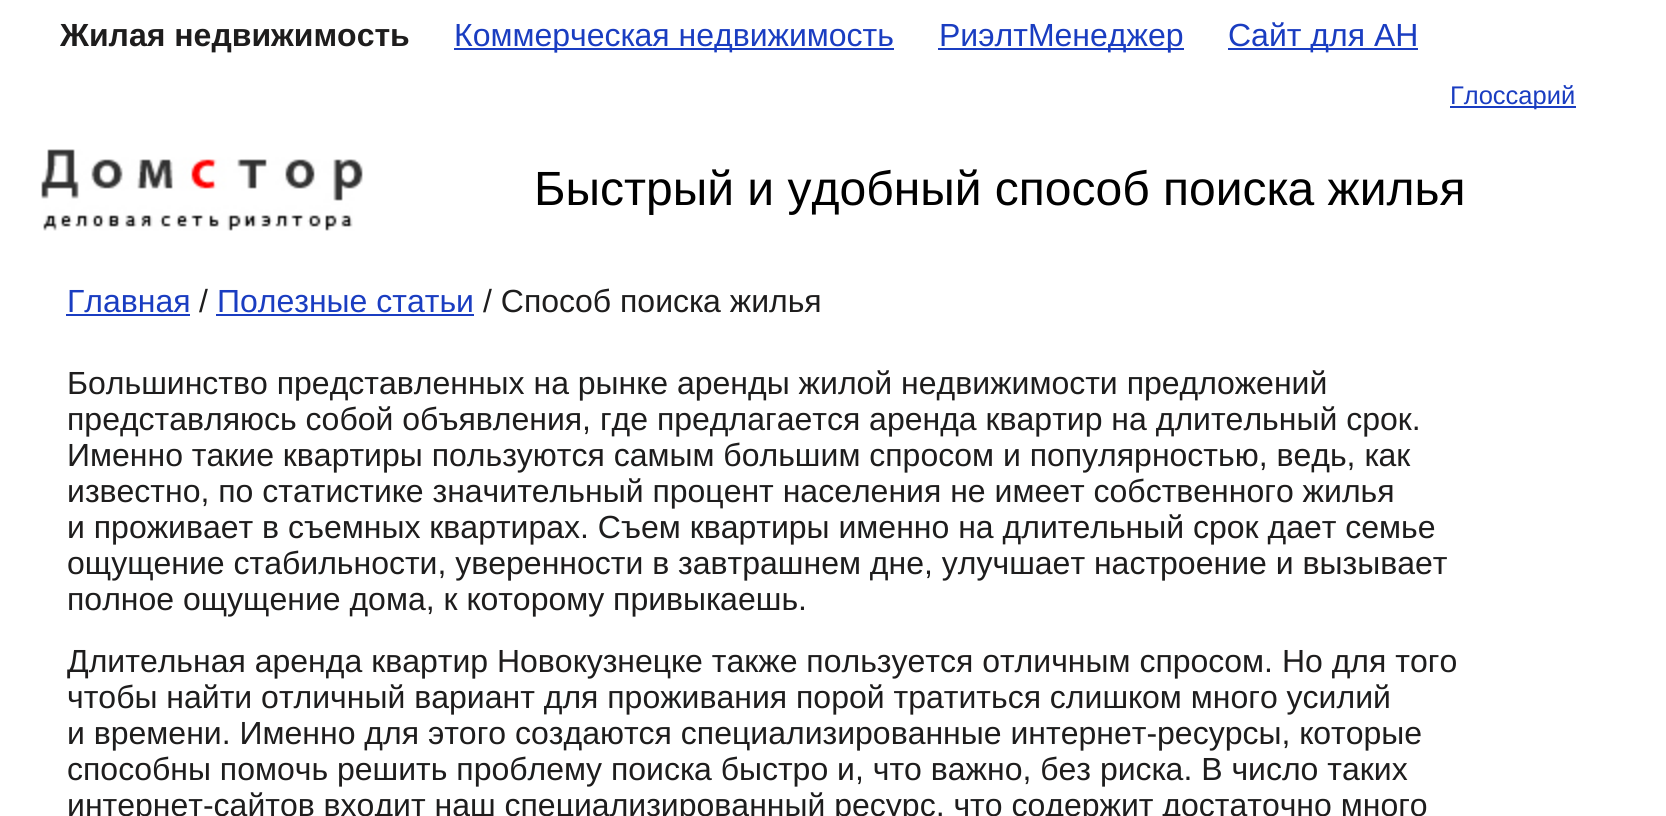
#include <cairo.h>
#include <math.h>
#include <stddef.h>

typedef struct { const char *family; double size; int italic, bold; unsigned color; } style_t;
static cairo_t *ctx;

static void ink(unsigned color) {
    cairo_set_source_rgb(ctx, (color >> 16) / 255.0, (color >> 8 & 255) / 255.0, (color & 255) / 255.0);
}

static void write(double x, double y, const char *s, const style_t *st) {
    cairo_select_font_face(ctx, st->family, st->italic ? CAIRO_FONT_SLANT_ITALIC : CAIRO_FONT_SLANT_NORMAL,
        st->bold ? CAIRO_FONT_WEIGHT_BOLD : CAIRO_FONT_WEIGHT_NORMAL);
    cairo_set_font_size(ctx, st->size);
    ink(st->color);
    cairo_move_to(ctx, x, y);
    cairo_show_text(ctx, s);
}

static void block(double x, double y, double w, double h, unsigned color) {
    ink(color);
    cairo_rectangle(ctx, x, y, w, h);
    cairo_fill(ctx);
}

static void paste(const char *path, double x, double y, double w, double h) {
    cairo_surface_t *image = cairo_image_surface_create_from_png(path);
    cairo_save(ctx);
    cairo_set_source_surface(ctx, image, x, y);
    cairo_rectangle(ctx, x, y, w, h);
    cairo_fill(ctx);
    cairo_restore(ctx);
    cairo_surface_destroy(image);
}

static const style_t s1 = {"Liberation Sans", 32, 0, 1, 0x1e1d1d};
static const style_t s2 = {"Liberation Sans", 32, 0, 0, 0x1a3dc1};
static const style_t s3 = {"Liberation Sans", 25.5, 0, 0, 0x1a3dc1};
static const style_t s4 = {"Liberation Sans", 48, 0, 0, 0x000000};
static const style_t s5 = {"Liberation Sans", 32, 0, 0, 0x1e1d1d};

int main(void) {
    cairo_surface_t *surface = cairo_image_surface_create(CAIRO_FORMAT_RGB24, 1666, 816);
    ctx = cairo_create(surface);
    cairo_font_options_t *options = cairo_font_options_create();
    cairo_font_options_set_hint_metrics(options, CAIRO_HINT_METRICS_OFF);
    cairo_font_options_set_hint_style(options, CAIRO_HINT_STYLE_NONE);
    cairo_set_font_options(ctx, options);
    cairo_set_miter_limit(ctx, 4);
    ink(0xffffff);
    cairo_paint(ctx);
    write(60, 46, "Жилая недвижимость", &s1);
    block(454, 48, 440, 2, 0x1a3dc1);
    write(454, 46, "Коммерческая недвижимость", &s2);
    block(938, 48, 246, 2, 0x1a3dc1);
    write(939, 46, "РиэлтМенеджер", &s2);
    block(1228, 48, 190, 2, 0x1a3dc1);
    write(1228, 46, "Сайт для АН", &s2);
    block(1450, 106, 126, 2, 0x1a3dc1);
    write(1450, 104, "Глоссарий", &s3);
    paste("pic1.png", 41, 149, 322, 82);
    write(534, 205, "Быстрый и удобный способ поиска жилья", &s4);
    write(67, 312, "Главная", &s2);
    block(66, 314, 124, 2, 0x1a3dc1);
    write(199, 312, "/", &s5);
    write(217, 312, "Полезные статьи", &s2);
    block(216, 314, 258, 2, 0x1a3dc1);
    write(483, 312, "/ Способ поиска жилья", &s5);
    write(67, 394, "Большинство представленных на рынке аренды жилой недвижимости предложений", &s5);
    write(67, 430, "представляюсь собой объявления, где предлагается аренда квартир на длительный срок.", &s5);
    write(67, 466, "Именно такие квартиры пользуются самым большим спросом и популярностью, ведь, как", &s5);
    write(67, 502, "известно, по статистике значительный процент населения не имеет собственного жилья", &s5);
    write(67, 538, "и проживает в съемных квартирах. Съем квартиры именно на длительный срок дает семье", &s5);
    write(67, 574, "ощущение стабильности, уверенности в завтрашнем дне, улучшает настроение и вызывает", &s5);
    write(67, 610, "полное ощущение дома, к которому привыкаешь.", &s5);
    write(67, 672, "Длительная аренда квартир Новокузнецке также пользуется отличным спросом. Но для того", &s5);
    write(67, 708, "чтобы найти отличный вариант для проживания порой тратиться слишком много усилий", &s5);
    write(67, 744, "и времени. Именно для этого создаются специализированные интернет-ресурсы, которые", &s5);
    write(67, 780, "способны помочь решить проблему поиска быстро и, что важно, без риска. В число таких", &s5);
    write(67, 816, "интернет-сайтов входит наш специализированный ресурс, что содержит достаточно много", &s5);
    cairo_surface_write_to_png(surface, "screenshot.png");
    cairo_font_options_destroy(options);
    cairo_destroy(ctx);
    cairo_surface_destroy(surface);
    return 0;
}
